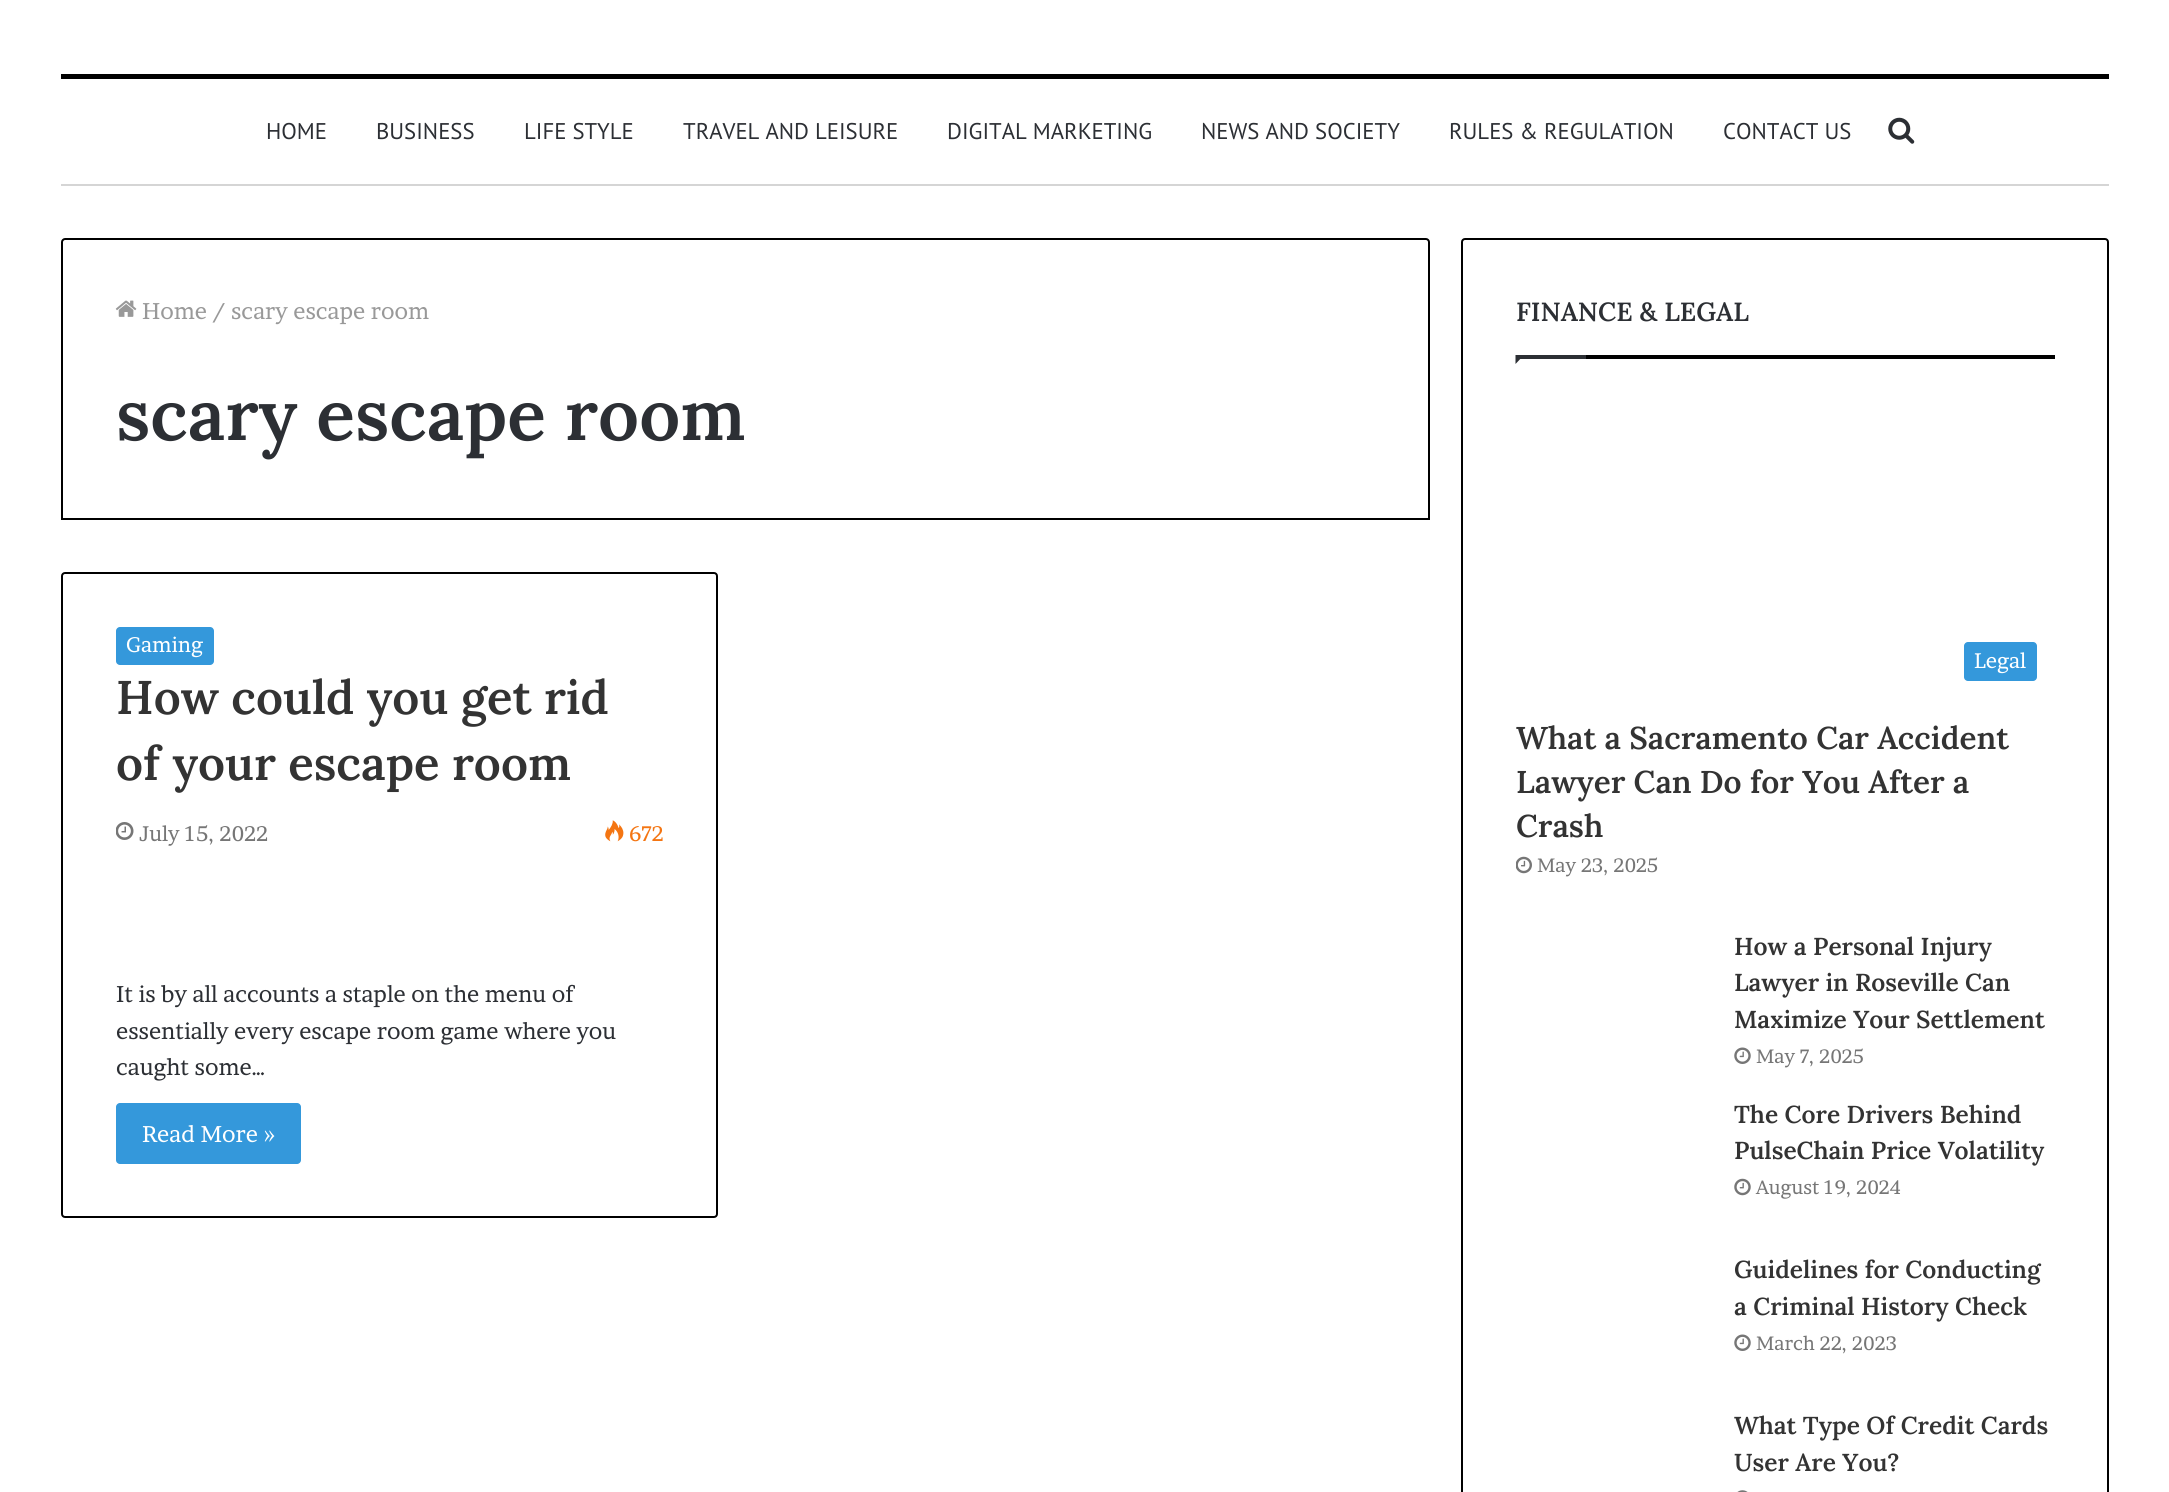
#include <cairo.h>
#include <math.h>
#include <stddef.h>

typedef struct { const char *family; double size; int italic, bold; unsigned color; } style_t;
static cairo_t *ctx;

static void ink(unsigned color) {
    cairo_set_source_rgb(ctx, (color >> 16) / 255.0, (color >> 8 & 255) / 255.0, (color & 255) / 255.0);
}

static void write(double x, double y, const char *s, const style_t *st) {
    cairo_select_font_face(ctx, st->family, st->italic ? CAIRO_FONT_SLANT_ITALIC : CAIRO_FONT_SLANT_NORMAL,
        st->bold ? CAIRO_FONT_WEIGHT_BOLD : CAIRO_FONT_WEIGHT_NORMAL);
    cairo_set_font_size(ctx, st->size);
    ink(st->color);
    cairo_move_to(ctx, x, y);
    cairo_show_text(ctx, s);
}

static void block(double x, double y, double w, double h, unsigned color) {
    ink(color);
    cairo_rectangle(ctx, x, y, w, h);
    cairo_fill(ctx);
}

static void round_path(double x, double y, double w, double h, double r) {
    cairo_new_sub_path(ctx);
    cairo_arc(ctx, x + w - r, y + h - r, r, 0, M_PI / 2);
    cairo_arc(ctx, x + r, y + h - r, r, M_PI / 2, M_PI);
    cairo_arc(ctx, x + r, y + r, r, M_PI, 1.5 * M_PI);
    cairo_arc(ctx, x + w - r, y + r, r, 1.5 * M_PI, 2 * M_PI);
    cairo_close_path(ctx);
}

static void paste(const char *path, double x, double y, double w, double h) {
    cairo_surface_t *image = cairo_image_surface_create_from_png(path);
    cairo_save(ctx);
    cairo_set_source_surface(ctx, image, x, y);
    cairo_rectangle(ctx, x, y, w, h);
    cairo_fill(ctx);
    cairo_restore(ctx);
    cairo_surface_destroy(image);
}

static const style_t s1 = {"PT Sans", 22.75, 0, 0, 0x2c2f34};
static const style_t s2 = {"Brawler", 22.75, 0, 0, 0x999999};
static const style_t s3 = {"Lora SemiBold", 71.75, 0, 0, 0x2c2f34};
static const style_t s4 = {"Brawler", 21, 0, 0, 0xffffff};
static const style_t s5 = {"Lora SemiBold", 47.25, 0, 0, 0x333333};
static const style_t s6 = {"Brawler", 21, 0, 0, 0x767676};
static const style_t s7 = {"Brawler", 21, 0, 0, 0xf47512};
static const style_t s8 = {"Brawler", 22.75, 0, 0, 0x2c2f34};
static const style_t s9 = {"Brawler", 22.75, 0, 0, 0xffffff};
static const style_t s10 = {"Lora SemiBold", 26.25, 0, 0, 0x2c2f34};
static const style_t s11 = {"Lora SemiBold", 31.5, 0, 0, 0x333333};
static const style_t s12 = {"Brawler", 19.25, 0, 0, 0x767676};
static const style_t s13 = {"Lora SemiBold", 24.5, 0, 0, 0x333333};

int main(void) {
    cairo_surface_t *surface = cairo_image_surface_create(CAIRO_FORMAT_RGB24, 2169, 1492);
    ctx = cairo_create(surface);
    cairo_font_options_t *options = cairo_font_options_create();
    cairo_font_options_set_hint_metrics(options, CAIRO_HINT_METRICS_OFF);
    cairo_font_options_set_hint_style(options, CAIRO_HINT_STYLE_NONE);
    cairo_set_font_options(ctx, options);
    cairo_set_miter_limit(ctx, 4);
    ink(0xffffff);
    cairo_paint(ctx);
    block(61, 74, 2048, 5, 0x000000);
    block(61, 184, 2048, 2, 0xd5d5d5);
    write(266, 139, "HOME", &s1);
    write(376, 139, "BUSINESS", &s1);
    write(524, 139, "LIFE STYLE", &s1);
    write(683, 139, "TRAVEL AND LEISURE", &s1);
    write(947, 139, "DIGITAL MARKETING", &s1);
    write(1201, 139, "NEWS AND SOCIETY", &s1);
    write(1449, 139, "RULES & REGULATION", &s1);
    write(1723, 139, "CONTACT US", &s1);
    paste("pic1.png", 1888, 117, 27, 27);
    cairo_new_path(ctx);
    cairo_move_to(ctx, 65, 239);
    cairo_line_to(ctx, 1426, 239);
    cairo_curve_to(ctx, 1427.5, 239, 1429, 240.5, 1429, 242);
    cairo_line_to(ctx, 1429, 519);
    cairo_line_to(ctx, 62, 519);
    cairo_line_to(ctx, 62, 242);
    cairo_curve_to(ctx, 62, 240.5, 63.5, 239, 65, 239);
    cairo_close_path(ctx);
    ink(0x000000);
    cairo_stroke(ctx);
    paste("pic2.png", 115, 300, 22, 17);
    write(142, 319, "Home", &s2);
    write(212, 319, "/", &s2);
    write(231, 319, "scary escape room", &s2);
    write(116, 440, "scary escape room", &s3);
    round_path(62, 573, 655, 644, 3);
    ink(0x000000);
    cairo_stroke(ctx);
    ink(0x3498db);
    round_path(116, 627, 98, 38, 4);
    cairo_fill(ctx);
    write(126, 652, "Gaming", &s4);
    write(116, 714, "How could you get rid", &s5);
    write(116, 780, "of your escape room", &s5);
    paste("pic3.png", 116, 822, 18, 18);
    write(139, 841, "July 15, 2022", &s6);
    paste("pic4.png", 605, 820, 19, 22);
    write(629, 841, "672", &s7);
    write(116, 1002, "It is by all accounts a staple on the menu of", &s8);
    write(116, 1039, "essentially every escape room game where you", &s8);
    write(116, 1075, "caught some…", &s8);
    ink(0x3498db);
    round_path(116, 1103, 185, 61, 4);
    cairo_fill(ctx);
    write(142, 1142, "Read More »", &s9);
    round_path(1462, 239, 646, 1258, 3);
    ink(0x000000);
    cairo_stroke(ctx);
    block(1586, 355, 469, 4, 0x000000);
    write(1516, 321, "FINANCE & LEGAL", &s10);
    cairo_new_path(ctx);
    cairo_move_to(ctx, 1515.5, 355);
    cairo_line_to(ctx, 1524, 355);
    cairo_line_to(ctx, 1515.5, 364);
    cairo_close_path(ctx);
    cairo_fill(ctx);
    block(1516, 355, 70, 4, 0x2c2f34);
    ink(0x3498db);
    round_path(1964, 642, 73, 39, 4);
    cairo_fill(ctx);
    write(1974, 668, "Legal", &s4);
    write(1516, 749, "What a Sacramento Car Accident", &s11);
    write(1516, 793, "Lawyer Can Do for You After a", &s11);
    write(1516, 837, "Crash", &s11);
    paste("pic5.png", 1516, 856, 16, 18);
    write(1537, 872, "May 23, 2025", &s12);
    write(1734, 955, "How a Personal Injury", &s13);
    write(1734, 991, "Lawyer in Roseville Can", &s13);
    write(1734, 1028, "Maximize Your Settlement", &s13);
    paste("pic6.png", 1734, 1047, 17, 17);
    write(1756, 1063, "May 7, 2025", &s12);
    write(1734, 1123, "The Core Drivers Behind", &s13);
    write(1734, 1159, "PulseChain Price Volatility", &s13);
    paste("pic7.png", 1734, 1178, 17, 18);
    write(1756, 1194, "August 19, 2024", &s12);
    write(1734, 1278, "Guidelines for Conducting", &s13);
    write(1734, 1315, "a Criminal History Check", &s13);
    paste("pic6.png", 1734, 1334, 17, 17);
    write(1756, 1350, "March 22, 2023", &s12);
    write(1734, 1434, "What Type Of Credit Cards", &s13);
    write(1734, 1471, "User Are You?", &s13);
    paste("pic8.png", 1737, 1490, 11, 2);
    cairo_surface_write_to_png(surface, "screenshot.png");
    cairo_font_options_destroy(options);
    cairo_destroy(ctx);
    cairo_surface_destroy(surface);
    return 0;
}
